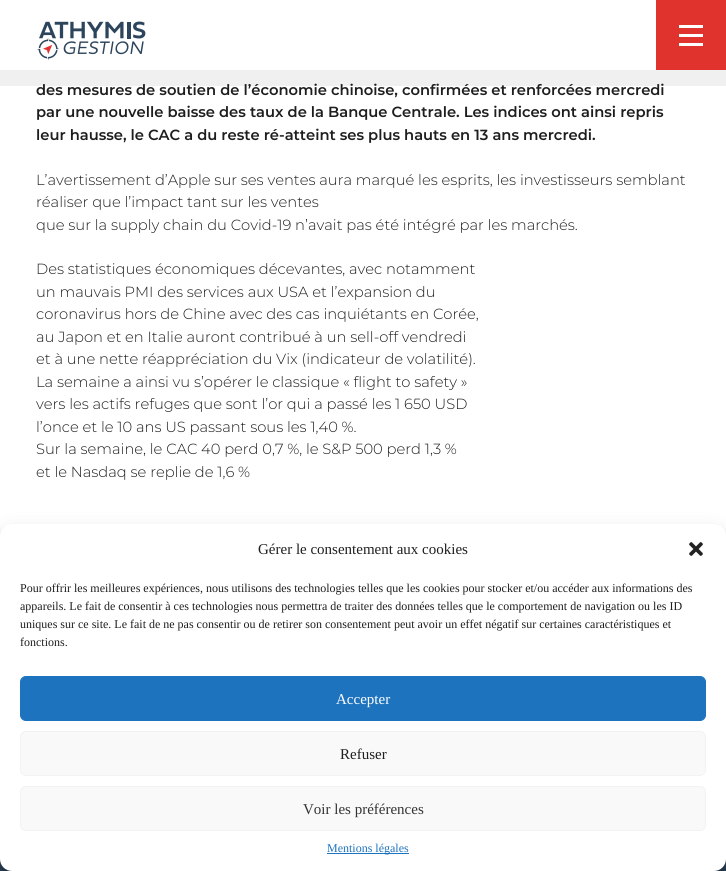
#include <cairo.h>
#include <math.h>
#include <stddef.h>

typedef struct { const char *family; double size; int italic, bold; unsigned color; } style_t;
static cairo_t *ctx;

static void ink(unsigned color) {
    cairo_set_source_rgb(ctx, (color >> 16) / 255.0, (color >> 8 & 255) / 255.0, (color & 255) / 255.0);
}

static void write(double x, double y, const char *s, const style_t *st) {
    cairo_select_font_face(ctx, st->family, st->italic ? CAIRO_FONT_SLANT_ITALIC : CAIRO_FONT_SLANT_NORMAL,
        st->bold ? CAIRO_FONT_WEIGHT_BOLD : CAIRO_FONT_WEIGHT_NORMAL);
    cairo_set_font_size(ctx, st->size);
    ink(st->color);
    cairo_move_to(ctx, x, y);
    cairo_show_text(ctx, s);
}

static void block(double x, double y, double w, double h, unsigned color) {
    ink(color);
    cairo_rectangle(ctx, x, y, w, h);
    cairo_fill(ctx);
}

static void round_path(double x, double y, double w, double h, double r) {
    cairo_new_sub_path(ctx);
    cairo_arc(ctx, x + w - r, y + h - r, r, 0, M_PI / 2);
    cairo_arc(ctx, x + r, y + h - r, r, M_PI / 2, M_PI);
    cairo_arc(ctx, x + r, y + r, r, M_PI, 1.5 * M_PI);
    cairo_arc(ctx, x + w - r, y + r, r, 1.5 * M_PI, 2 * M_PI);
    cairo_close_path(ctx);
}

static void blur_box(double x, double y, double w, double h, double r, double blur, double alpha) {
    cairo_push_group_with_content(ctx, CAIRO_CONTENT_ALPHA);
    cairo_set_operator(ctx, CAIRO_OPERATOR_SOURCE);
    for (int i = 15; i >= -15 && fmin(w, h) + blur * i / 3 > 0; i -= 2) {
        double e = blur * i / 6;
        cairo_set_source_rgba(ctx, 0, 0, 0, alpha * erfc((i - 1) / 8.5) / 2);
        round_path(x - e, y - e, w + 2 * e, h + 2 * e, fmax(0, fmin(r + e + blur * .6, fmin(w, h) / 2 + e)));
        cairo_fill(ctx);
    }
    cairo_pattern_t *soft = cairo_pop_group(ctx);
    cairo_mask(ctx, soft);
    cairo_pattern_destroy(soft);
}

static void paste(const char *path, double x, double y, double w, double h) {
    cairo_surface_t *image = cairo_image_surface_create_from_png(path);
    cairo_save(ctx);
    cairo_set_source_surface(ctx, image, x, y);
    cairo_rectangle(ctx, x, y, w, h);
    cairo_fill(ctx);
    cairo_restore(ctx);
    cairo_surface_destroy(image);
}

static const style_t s1 = {"Montserrat SemiBold", 14.7, 0, 0, 0x1f1e1e};
static const style_t s2 = {"Montserrat Light", 14.7, 0, 0, 0x1f1e1e};
static const style_t s3 = {"Liberation Serif", 15, 0, 0, 0x1f1e1e};
static const style_t s4 = {"Liberation Serif", 12, 0, 0, 0x1f1e1e};
static const style_t s5 = {"Liberation Serif", 15, 0, 0, 0xffffff};
static const style_t s6 = {"Liberation Serif", 15, 0, 0, 0x333333};
static const style_t s7 = {"Liberation Serif", 12, 0, 0, 0x1e73be};

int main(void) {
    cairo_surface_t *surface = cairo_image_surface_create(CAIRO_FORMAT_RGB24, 726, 871);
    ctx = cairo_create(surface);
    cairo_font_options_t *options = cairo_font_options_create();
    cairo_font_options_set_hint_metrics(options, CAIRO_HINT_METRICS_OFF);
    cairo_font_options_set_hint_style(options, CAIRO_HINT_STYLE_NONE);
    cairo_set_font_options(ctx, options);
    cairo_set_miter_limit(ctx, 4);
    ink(0xffffff);
    cairo_paint(ctx);
    cairo_set_source_rgba(ctx, 0, 0, 0, 0.06);
    cairo_rectangle(ctx, 0, 70, 726, 16);
    cairo_fill(ctx);
    paste("pic1.png", 37, 21, 109, 40);
    block(656, 0, 70, 70, 0xe1332e);
    block(679, 25, 24, 3, 0xffffff);
    block(679, 34, 24, 3, 0xffffff);
    block(679, 43, 24, 3, 0xffffff);
    write(36, 95, "des mesures de soutien de l’économie chinoise, confirmées et renforcées mercredi", &s1);
    write(36, 117, "par une nouvelle baisse des taux de la Banque Centrale. Les indices ont ainsi repris", &s1);
    write(36, 140, "leur hausse, le CAC a du reste ré-atteint ses plus hauts en 13 ans mercredi.", &s1);
    write(36, 185, "L’avertissement d’Apple sur ses ventes aura marqué les esprits, les investisseurs semblant", &s2);
    write(36, 207, "réaliser que l’impact tant sur les ventes", &s2);
    write(36, 230, "que sur la supply chain du Covid-19 n’avait pas été intégré par les marchés.", &s2);
    write(36, 274, "Des statistiques économiques décevantes, avec notamment", &s2);
    write(36, 297, "un mauvais PMI des services aux USA et l’expansion du", &s2);
    write(36, 319, "coronavirus hors de Chine avec des cas inquiétants en Corée,", &s2);
    write(36, 342, "au Japon et en Italie auront contribué à un sell-off vendredi", &s2);
    write(36, 364, "et à une nette réappréciation du Vix (indicateur de volatilité).", &s2);
    write(36, 387, "La semaine a ainsi vu s’opérer le classique « flight to safety »", &s2);
    write(36, 409, "vers les actifs refuges que sont l’or qui a passé les 1 650 USD", &s2);
    write(36, 432, "l’once et le 10 ans US passant sous les 1,40 %.", &s2);
    write(36, 454, "Sur la semaine, le CAC 40 perd 0,7 %, le S&P 500 perd 1,3 %", &s2);
    write(36, 477, "et le Nasdaq se replie de 1,6 %", &s2);
    block(0, 859, 726, 12, 0x2d455c);
    ink(0x000000);
    blur_box(0, 530, 726, 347, 12, 3, 0.23);
    blur_box(0, 534, 726, 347, 12, 10, 0.19);
    ink(0xffffff);
    round_path(0, 524, 726, 347, 12);
    cairo_fill(ctx);
    write(258, 554, "Gérer le consentement aux cookies", &s3);
    paste("pic2.png", 689, 542, 14, 14);
    write(20, 592, "Pour offrir les meilleures expériences, nous utilisons des technologies telles que les cookies pour stocker et/ou accéder aux informations des", &s4);
    write(20, 610, "appareils. Le fait de consentir à ces technologies nous permettra de traiter des données telles que le comportement de navigation ou les ID", &s4);
    write(20, 628, "uniques sur ce site. Le fait de ne pas consentir ou de retirer son consentement peut avoir un effet négatif sur certaines caractéristiques et", &s4);
    write(20, 646, "fonctions.", &s4);
    ink(0x1e73be);
    round_path(20.5, 676.5, 685, 44, 5.5);
    cairo_fill_preserve(ctx);
    cairo_set_line_width(ctx, 1);
    cairo_stroke(ctx);
    write(336, 704, "Accepter", &s5);
    ink(0xf9f9f9);
    round_path(20.5, 731.5, 685, 44, 5.5);
    cairo_fill_preserve(ctx);
    ink(0xf2f2f2);
    cairo_stroke(ctx);
    write(340, 759, "Refuser", &s3);
    ink(0xf9f9f9);
    round_path(20.5, 786.5, 685, 44, 5.5);
    cairo_fill_preserve(ctx);
    ink(0xf2f2f2);
    cairo_stroke(ctx);
    write(303, 814, "Voir les préférences", &s6);
    block(327, 853, 82, 1, 0x1e73be);
    write(327, 852, "Mentions légales", &s7);
    cairo_surface_write_to_png(surface, "screenshot.png");
    cairo_font_options_destroy(options);
    cairo_destroy(ctx);
    cairo_surface_destroy(surface);
    return 0;
}
